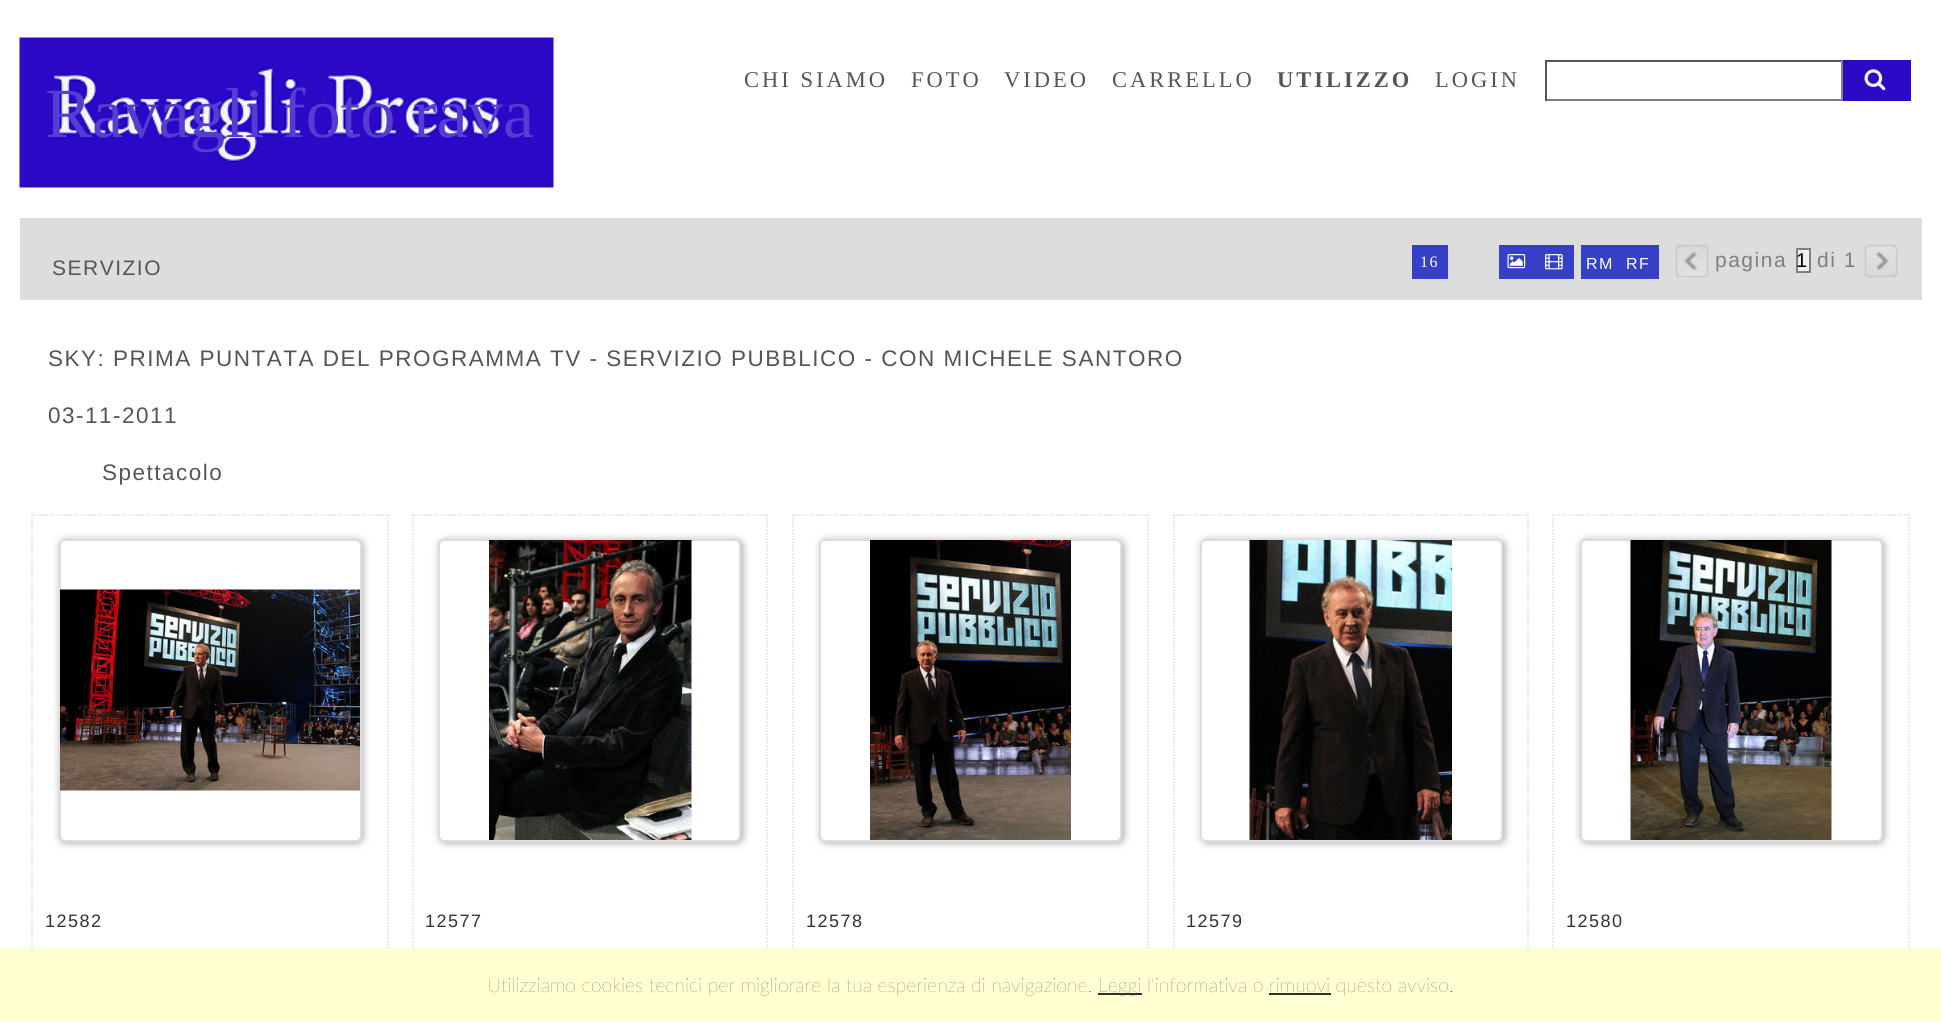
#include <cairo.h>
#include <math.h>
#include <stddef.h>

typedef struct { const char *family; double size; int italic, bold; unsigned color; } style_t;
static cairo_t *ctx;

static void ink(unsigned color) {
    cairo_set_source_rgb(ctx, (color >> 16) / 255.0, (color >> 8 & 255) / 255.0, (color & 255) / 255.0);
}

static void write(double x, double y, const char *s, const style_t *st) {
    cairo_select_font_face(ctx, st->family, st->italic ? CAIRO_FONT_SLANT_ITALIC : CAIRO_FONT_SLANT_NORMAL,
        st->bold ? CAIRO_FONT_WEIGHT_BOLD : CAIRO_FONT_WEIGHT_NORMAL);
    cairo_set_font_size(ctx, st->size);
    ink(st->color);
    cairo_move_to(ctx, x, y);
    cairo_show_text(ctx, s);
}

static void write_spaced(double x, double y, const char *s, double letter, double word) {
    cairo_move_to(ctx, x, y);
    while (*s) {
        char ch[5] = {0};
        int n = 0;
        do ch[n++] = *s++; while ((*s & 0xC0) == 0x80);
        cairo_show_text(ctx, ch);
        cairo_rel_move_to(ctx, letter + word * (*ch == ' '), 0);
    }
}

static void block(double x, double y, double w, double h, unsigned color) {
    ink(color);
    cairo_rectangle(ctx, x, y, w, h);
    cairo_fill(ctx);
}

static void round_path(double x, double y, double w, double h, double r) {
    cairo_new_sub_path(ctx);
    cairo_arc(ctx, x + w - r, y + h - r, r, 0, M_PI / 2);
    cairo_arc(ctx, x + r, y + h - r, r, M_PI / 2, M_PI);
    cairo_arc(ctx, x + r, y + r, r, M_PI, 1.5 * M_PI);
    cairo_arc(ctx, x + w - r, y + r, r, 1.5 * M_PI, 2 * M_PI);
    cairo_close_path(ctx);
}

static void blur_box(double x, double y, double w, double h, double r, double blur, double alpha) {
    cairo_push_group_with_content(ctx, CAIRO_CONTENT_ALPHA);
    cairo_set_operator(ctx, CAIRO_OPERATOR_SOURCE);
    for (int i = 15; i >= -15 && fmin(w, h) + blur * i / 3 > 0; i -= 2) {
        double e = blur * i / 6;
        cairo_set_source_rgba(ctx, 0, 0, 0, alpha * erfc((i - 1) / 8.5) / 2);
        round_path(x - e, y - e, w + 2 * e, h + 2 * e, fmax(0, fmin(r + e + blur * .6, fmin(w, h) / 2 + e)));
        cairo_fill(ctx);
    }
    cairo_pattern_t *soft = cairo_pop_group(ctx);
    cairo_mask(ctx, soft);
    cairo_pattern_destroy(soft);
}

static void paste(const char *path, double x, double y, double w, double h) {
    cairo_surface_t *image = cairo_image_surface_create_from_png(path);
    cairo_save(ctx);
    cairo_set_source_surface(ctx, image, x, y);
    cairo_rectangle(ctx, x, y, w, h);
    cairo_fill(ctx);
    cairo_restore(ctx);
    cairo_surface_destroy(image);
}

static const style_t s1 = {"Liberation Serif", 70.5, 0, 0, 0x563cd1};
static const style_t s2 = {"Liberation Sans", 20, 0, 0, 0x000000};
static const style_t s3 = {"Lato ExtraLight", 19.5, 0, 0, 0x31312c};
static const style_t s4 = {"Lato ExtraLight", 19.5, 0, 0, 0x333333};

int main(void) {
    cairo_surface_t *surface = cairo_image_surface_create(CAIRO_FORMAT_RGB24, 1941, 1022);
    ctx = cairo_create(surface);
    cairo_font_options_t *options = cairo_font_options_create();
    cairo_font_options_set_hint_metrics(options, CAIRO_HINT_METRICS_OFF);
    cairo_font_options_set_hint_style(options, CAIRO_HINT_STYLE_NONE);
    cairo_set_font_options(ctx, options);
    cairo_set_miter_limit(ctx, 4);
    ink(0xffffff);
    cairo_paint(ctx);
    cairo_select_font_face(ctx, "Liberation Serif", CAIRO_FONT_SLANT_NORMAL, CAIRO_FONT_WEIGHT_NORMAL);
    cairo_set_font_size(ctx, 22.5);
    ink(0x555555);
    write_spaced(744, 87, "CHI SIAMO", 3, 0);
    write_spaced(911, 87, "FOTO", 3, 0);
    write_spaced(1004, 87, "VIDEO", 3, 0);
    write_spaced(1112, 87, "CARRELLO", 3, 0);
    cairo_select_font_face(ctx, "Liberation Serif", CAIRO_FONT_SLANT_NORMAL, CAIRO_FONT_WEIGHT_BOLD);
    write_spaced(1277, 87, "UTILIZZO", 3, 0);
    cairo_select_font_face(ctx, "Liberation Serif", CAIRO_FONT_SLANT_NORMAL, CAIRO_FONT_WEIGHT_NORMAL);
    write_spaced(1435, 87, "LOGIN", 3, 0);
    block(1545, 60, 297, 2, 0x555555);
    block(1841, 60, 2, 41, 0x808080);
    block(1545, 99, 297, 2, 0x808080);
    block(1545, 60, 2, 41, 0x555555);
    block(1843, 60, 68, 41, 0x2c08c7);
    paste("pic1.png", 1864, 69, 22, 22);
    paste("pic2.png", 19, 37, 535, 151);
    write(45, 137, "Ravagli foto rava", &s1);
    block(20, 218, 1902, 82, 0xdddddd);
    cairo_select_font_face(ctx, "Liberation Sans", CAIRO_FONT_SLANT_NORMAL, CAIRO_FONT_WEIGHT_NORMAL);
    cairo_set_font_size(ctx, 21);
    ink(0x555555);
    write_spaced(52, 275, "SERVIZIO", 1.5, 0);
    block(1412, 245, 36, 34, 0x3540c6);
    cairo_select_font_face(ctx, "Liberation Serif", CAIRO_FONT_SLANT_NORMAL, CAIRO_FONT_WEIGHT_NORMAL);
    cairo_set_font_size(ctx, 16);
    ink(0xffffff);
    write_spaced(1420, 267, "16", 1.5, 0);
    block(1499, 245, 75, 34, 0x3540c6);
    paste("pic3.png", 1507, 254, 19, 15);
    paste("pic4.png", 1545, 254, 18, 16);
    block(1581, 245, 78, 34, 0x3540c6);
    cairo_select_font_face(ctx, "Liberation Sans", CAIRO_FONT_SLANT_NORMAL, CAIRO_FONT_WEIGHT_NORMAL);
    ink(0xffffff);
    write_spaced(1586, 269, "RM", 1.5, 0);
    write_spaced(1626, 269, "RF", 1.5, 0);
    paste("pic5.png", 1675, 244, 34, 34);
    cairo_set_font_size(ctx, 21);
    ink(0x808080);
    write_spaced(1715, 267, "pagina", 1.5, 0);
    ink(0xefefef);
    cairo_rectangle(ctx, 1797, 249, 13, 23);
    cairo_fill_preserve(ctx);
    ink(0x808080);
    cairo_stroke(ctx);
    write(1796, 267, "1", &s2);
    cairo_set_font_size(ctx, 21);
    ink(0x808080);
    write_spaced(1817, 267, "di 1", 1.5, 0);
    paste("pic6.png", 1864, 244, 34, 34);
    cairo_set_font_size(ctx, 22.5);
    ink(0x555555);
    write_spaced(48, 366, "SKY: PRIMA PUNTATA DEL PROGRAMMA TV - SERVIZIO PUBBLICO - CON MICHELE SANTORO", 1.5, 0);
    write_spaced(48, 423, "03-11-2011", 1.5, 0);
    write_spaced(102, 480, "Spettacolo", 1.5, 0);
    cairo_new_path(ctx);
    cairo_move_to(ctx, 31.5, 515);
    cairo_line_to(ctx, 388.5, 515);
    ink(0xdddddd);
    cairo_set_line_width(ctx, 1.5);
    cairo_set_dash(ctx, (double[]){1.5, 1.5}, 2, 0);
    cairo_stroke(ctx);
    cairo_new_path(ctx);
    cairo_move_to(ctx, 388, 514.5);
    cairo_line_to(ctx, 388, 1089);
    cairo_stroke(ctx);
    cairo_new_path(ctx);
    cairo_move_to(ctx, 32, 514.5);
    cairo_line_to(ctx, 32, 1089);
    cairo_stroke(ctx);
    ink(0xaaaaaa);
    blur_box(60, 540, 303, 303, 6, 4, 1);
    ink(0xffffff);
    round_path(60, 540, 301, 301, 5);
    cairo_fill_preserve(ctx);
    ink(0xdddddd);
    cairo_set_line_width(ctx, 2);
    cairo_set_dash(ctx, NULL, 0, 0);
    cairo_stroke(ctx);
    paste("pic7.png", 60, 589, 300, 202);
    cairo_set_font_size(ctx, 18);
    ink(0x333333);
    write_spaced(45, 927, "12582", 1.5, 0);
    cairo_new_path(ctx);
    cairo_move_to(ctx, 412.5, 515);
    cairo_line_to(ctx, 768, 515);
    ink(0xdddddd);
    cairo_set_line_width(ctx, 1.5);
    cairo_set_dash(ctx, (double[]){1.5, 1.5}, 2, 0);
    cairo_stroke(ctx);
    cairo_new_path(ctx);
    cairo_move_to(ctx, 767, 514.5);
    cairo_line_to(ctx, 767, 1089);
    cairo_stroke(ctx);
    cairo_new_path(ctx);
    cairo_move_to(ctx, 413, 514.5);
    cairo_line_to(ctx, 413, 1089);
    cairo_stroke(ctx);
    ink(0xaaaaaa);
    blur_box(440, 540, 303, 303, 6, 4, 1);
    ink(0xffffff);
    round_path(439, 540, 301, 301, 5);
    cairo_fill_preserve(ctx);
    ink(0xdddddd);
    cairo_set_line_width(ctx, 2);
    cairo_set_dash(ctx, NULL, 0, 0);
    cairo_stroke(ctx);
    paste("pic8.png", 489, 540, 203, 300);
    ink(0x333333);
    write_spaced(425, 927, "12577", 1.5, 0);
    cairo_new_path(ctx);
    cairo_move_to(ctx, 792, 515);
    cairo_line_to(ctx, 1149, 515);
    ink(0xdddddd);
    cairo_set_line_width(ctx, 1.5);
    cairo_set_dash(ctx, (double[]){1.5, 1.5}, 2, 0);
    cairo_stroke(ctx);
    cairo_new_path(ctx);
    cairo_move_to(ctx, 1148, 514.5);
    cairo_line_to(ctx, 1148, 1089);
    cairo_stroke(ctx);
    cairo_new_path(ctx);
    cairo_move_to(ctx, 793, 514.5);
    cairo_line_to(ctx, 793, 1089);
    cairo_stroke(ctx);
    ink(0xaaaaaa);
    blur_box(821, 540, 303, 303, 6, 4, 1);
    ink(0xffffff);
    round_path(820, 540, 301, 301, 5);
    cairo_fill_preserve(ctx);
    ink(0xdddddd);
    cairo_set_line_width(ctx, 2);
    cairo_set_dash(ctx, NULL, 0, 0);
    cairo_stroke(ctx);
    paste("pic9.png", 870, 540, 201, 300);
    ink(0x333333);
    write_spaced(806, 927, "12578", 1.5, 0);
    cairo_new_path(ctx);
    cairo_move_to(ctx, 1173, 515);
    cairo_line_to(ctx, 1528.5, 515);
    ink(0xdddddd);
    cairo_set_line_width(ctx, 1.5);
    cairo_set_dash(ctx, (double[]){1.5, 1.5}, 2, 0);
    cairo_stroke(ctx);
    cairo_new_path(ctx);
    cairo_move_to(ctx, 1528, 514.5);
    cairo_line_to(ctx, 1528, 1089);
    cairo_stroke(ctx);
    cairo_new_path(ctx);
    cairo_move_to(ctx, 1174, 514.5);
    cairo_line_to(ctx, 1174, 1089);
    cairo_stroke(ctx);
    ink(0xaaaaaa);
    blur_box(1202, 540, 303, 303, 6, 4, 1);
    ink(0xffffff);
    round_path(1201, 540, 301, 301, 5);
    cairo_fill_preserve(ctx);
    ink(0xdddddd);
    cairo_set_line_width(ctx, 2);
    cairo_set_dash(ctx, NULL, 0, 0);
    cairo_stroke(ctx);
    paste("pic10.png", 1249, 540, 203, 300);
    ink(0x333333);
    write_spaced(1186, 927, "12579", 1.5, 0);
    cairo_new_path(ctx);
    cairo_move_to(ctx, 1552.5, 515);
    cairo_line_to(ctx, 1909.5, 515);
    ink(0xdddddd);
    cairo_set_line_width(ctx, 1.5);
    cairo_set_dash(ctx, (double[]){1.5, 1.5}, 2, 0);
    cairo_stroke(ctx);
    cairo_new_path(ctx);
    cairo_move_to(ctx, 1909, 514.5);
    cairo_line_to(ctx, 1909, 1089);
    cairo_stroke(ctx);
    cairo_new_path(ctx);
    cairo_move_to(ctx, 1553, 514.5);
    cairo_line_to(ctx, 1553, 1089);
    cairo_stroke(ctx);
    ink(0xaaaaaa);
    blur_box(1581, 540, 303, 303, 6, 4, 1);
    ink(0xffffff);
    round_path(1581, 540, 301, 301, 5);
    cairo_fill_preserve(ctx);
    ink(0xdddddd);
    cairo_set_line_width(ctx, 2);
    cairo_set_dash(ctx, NULL, 0, 0);
    cairo_stroke(ctx);
    paste("pic11.png", 1630, 540, 202, 300);
    ink(0x333333);
    write_spaced(1566, 927, "12580", 1.5, 0);
    cairo_set_source_rgba(ctx, 1, 1, 0.8, 0.9);
    cairo_rectangle(ctx, 0, 948, 1941, 74);
    cairo_fill(ctx);
    write(487, 992, "Utilizziamo cookies tecnici per migliorare la tua esperienza di navigazione.", &s3);
    block(1098, 993, 44, 2, 0x313131);
    write(1098, 992, "Leggi", &s4);
    write(1147, 992, "l'informativa o rimuovi questo avviso.", &s3);
    cairo_set_source_rgba(ctx, 0.102, 0.102, 0.102, 0.9);
    cairo_rectangle(ctx, 1269, 993, 62, 2);
    cairo_fill(ctx);
    cairo_surface_write_to_png(surface, "screenshot.png");
    cairo_font_options_destroy(options);
    cairo_destroy(ctx);
    cairo_surface_destroy(surface);
    return 0;
}
